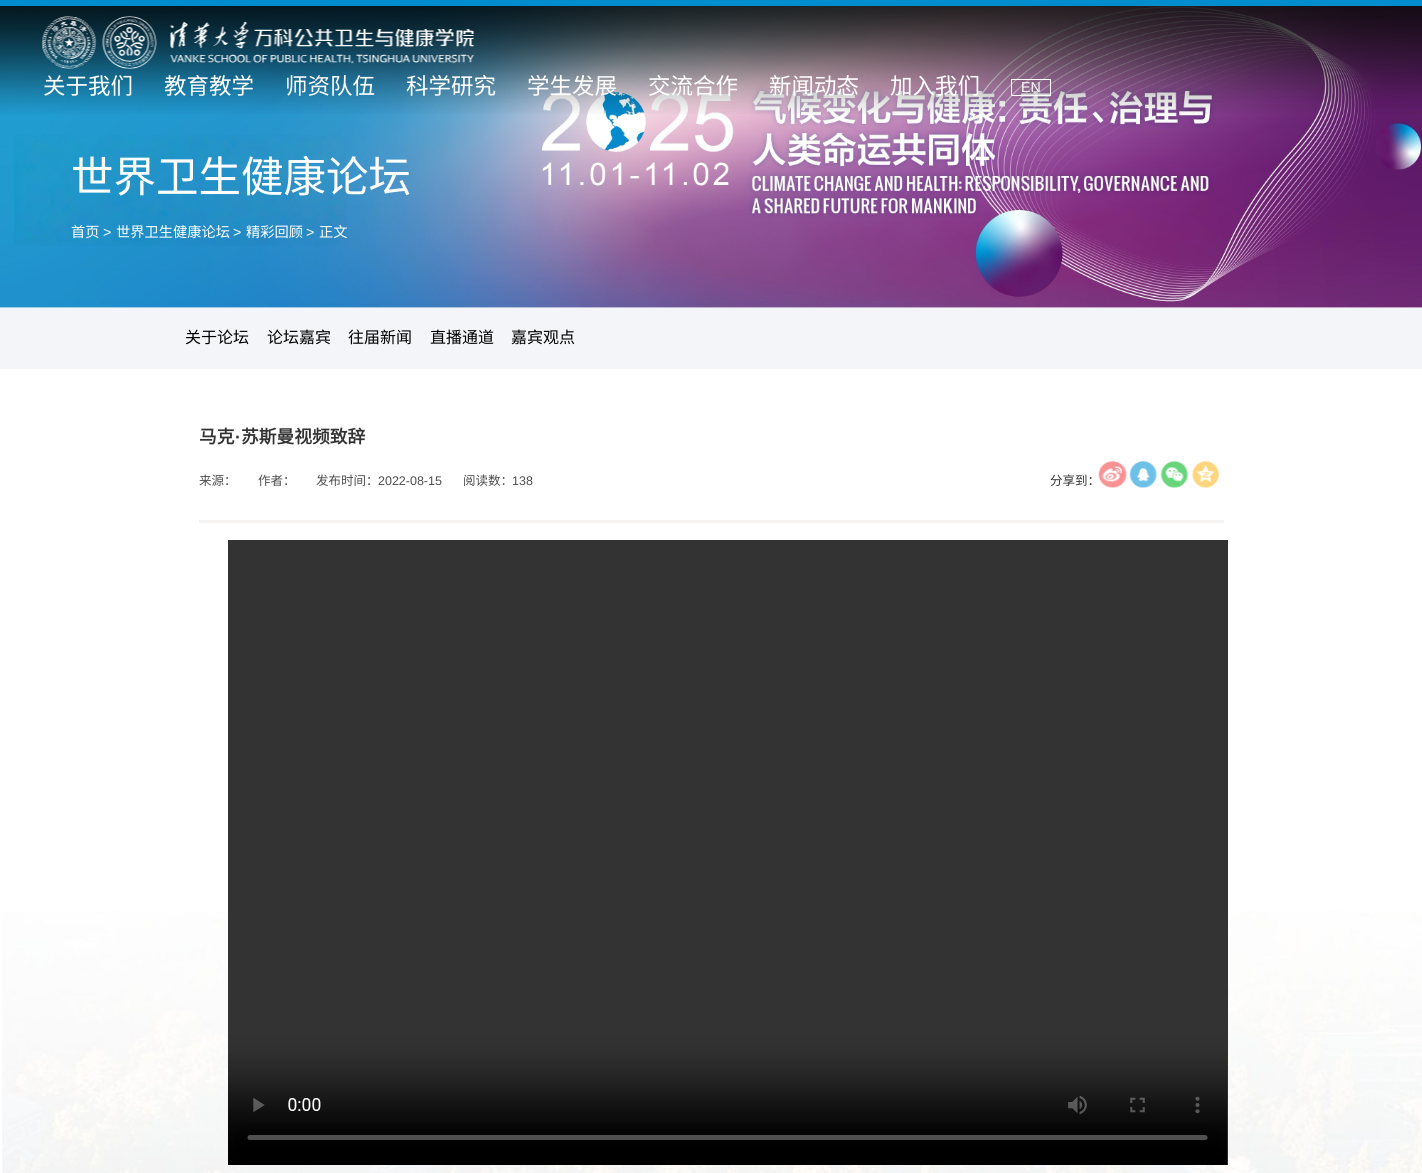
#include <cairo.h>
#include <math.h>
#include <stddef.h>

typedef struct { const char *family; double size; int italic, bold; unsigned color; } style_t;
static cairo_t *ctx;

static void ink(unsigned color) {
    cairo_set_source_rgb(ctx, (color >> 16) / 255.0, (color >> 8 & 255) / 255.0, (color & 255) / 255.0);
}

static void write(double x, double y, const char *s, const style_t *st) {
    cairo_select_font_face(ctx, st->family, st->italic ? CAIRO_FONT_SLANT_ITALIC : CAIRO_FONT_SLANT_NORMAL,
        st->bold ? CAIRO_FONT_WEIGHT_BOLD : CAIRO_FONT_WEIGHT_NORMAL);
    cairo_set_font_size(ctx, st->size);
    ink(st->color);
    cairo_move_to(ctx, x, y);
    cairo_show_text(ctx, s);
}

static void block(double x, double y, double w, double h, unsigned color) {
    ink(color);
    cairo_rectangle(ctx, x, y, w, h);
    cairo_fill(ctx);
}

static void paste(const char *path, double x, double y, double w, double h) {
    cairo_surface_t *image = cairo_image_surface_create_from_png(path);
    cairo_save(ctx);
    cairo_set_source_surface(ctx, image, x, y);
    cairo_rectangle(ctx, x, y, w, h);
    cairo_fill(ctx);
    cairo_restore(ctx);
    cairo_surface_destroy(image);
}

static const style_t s1 = {"Noto Sans CJK SC", 22.5, 0, 0, 0xffffff};
static const style_t s2 = {"Liberation Sans", 14.25, 0, 0, 0xffffff};
static const style_t s3 = {"Noto Sans CJK SC", 42.5, 0, 0, 0xffffff};
static const style_t s4 = {"Noto Sans CJK SC", 14.25, 0, 0, 0xffffff};
static const style_t s5 = {"Noto Sans CJK SC", 16, 0, 0, 0x000000};
static const style_t s6 = {"Noto Sans CJK SC", 17.75, 0, 1, 0x333333};
static const style_t s7 = {"Liberation Sans", 17.75, 0, 1, 0x333333};
static const style_t s8 = {"Noto Sans CJK SC", 12.5, 0, 0, 0x4e4e4e};
static const style_t s9 = {"Liberation Sans", 12.5, 0, 0, 0x4e4e4e};
static const style_t s10 = {"Noto Sans CJK SC", 12.5, 0, 0, 0x333333};

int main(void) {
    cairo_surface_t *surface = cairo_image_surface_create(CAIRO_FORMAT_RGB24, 1422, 1173);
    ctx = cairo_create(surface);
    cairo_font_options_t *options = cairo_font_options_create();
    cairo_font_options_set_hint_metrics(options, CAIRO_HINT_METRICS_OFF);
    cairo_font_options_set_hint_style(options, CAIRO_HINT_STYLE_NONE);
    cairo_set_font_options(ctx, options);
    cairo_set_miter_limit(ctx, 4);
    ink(0xffffff);
    cairo_paint(ctx);
    paste("pic3.png", 0, 6, 1422, 302);
    paste("pic1.png", 0, 6, 1422, 108);
    block(0, 0, 1422, 6, 0x008dcd);
    paste("pic2.png", 42, 16, 432, 53);
    write(43, 94, "关于我们", &s1);
    write(164, 94, "教育教学", &s1);
    write(285, 94, "师资队伍", &s1);
    write(406, 94, "科学研究", &s1);
    write(527, 94, "学生发展", &s1);
    write(648, 94, "交流合作", &s1);
    write(769, 94, "新闻动态", &s1);
    write(890, 94, "加入我们", &s1);
    cairo_rectangle(ctx, 1011.5, 79.5, 39, 16);
    cairo_set_line_width(ctx, 1);
    cairo_stroke(ctx);
    write(1021, 92, "EN", &s2);
    write(71, 192, "世界卫生健康论坛", &s3);
    write(71, 237, "首页", &s4);
    write(103, 237, ">", &s2);
    write(116, 237, "世界卫生健康论坛", &s4);
    write(233, 237, ">", &s2);
    write(246, 237, "精彩回顾", &s4);
    write(306, 237, ">", &s2);
    write(319, 237, "正文", &s4);
    block(0, 308, 1422, 61, 0xf3f5f9);
    write(185, 343, "关于论坛", &s5);
    write(267, 343, "论坛嘉宾", &s5);
    write(348, 343, "往届新闻", &s5);
    write(430, 343, "直播通道", &s5);
    write(511, 343, "嘉宾观点", &s5);
    paste("pic4.png", 2, 911, 1420, 262);
    write(199, 443, "马克", &s6);
    write(235, 443, "·", &s7);
    write(241, 443, "苏斯曼视频致辞", &s6);
    write(199, 485, "来源：", &s8);
    write(258, 485, "作者：", &s8);
    write(316, 485, "发布时间：", &s8);
    write(378, 485, "2022-08-15", &s9);
    write(463, 485, "阅读数：", &s8);
    write(512, 485, "138", &s9);
    write(1050, 485, "分享到：", &s10);
    paste("pic5.png", 1098, 461, 29, 27);
    paste("pic6.png", 1129, 461, 28, 27);
    paste("pic7.png", 1160, 461, 28, 27);
    paste("pic8.png", 1191, 461, 28, 27);
    block(199, 520, 1025, 3, 0xf4f3f2);
    paste("pic9.png", 228, 540, 1000, 625);
    cairo_surface_write_to_png(surface, "screenshot.png");
    cairo_font_options_destroy(options);
    cairo_destroy(ctx);
    cairo_surface_destroy(surface);
    return 0;
}
